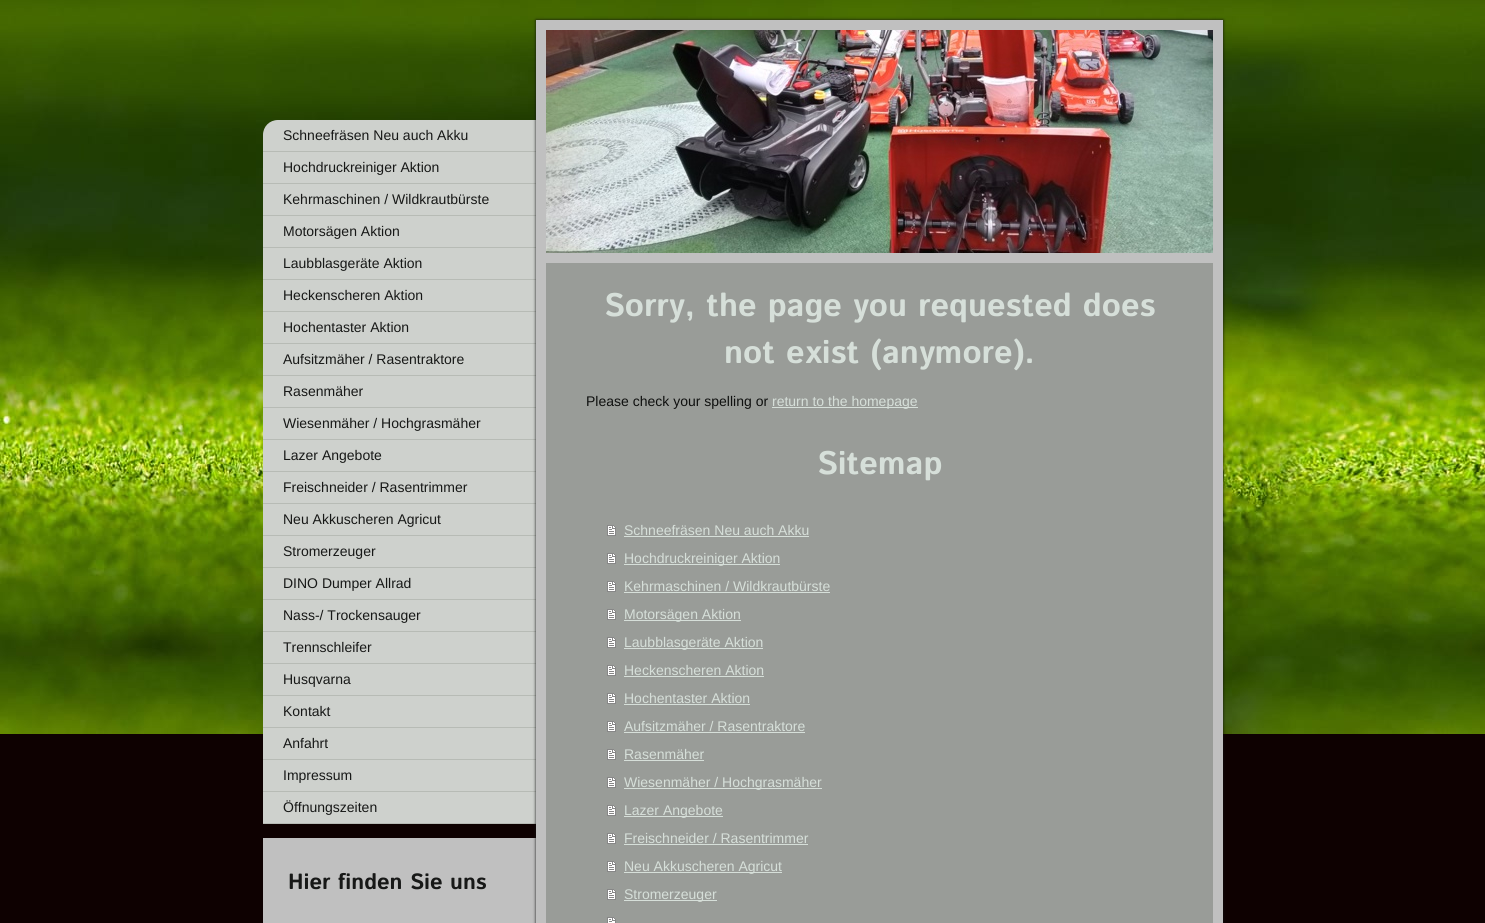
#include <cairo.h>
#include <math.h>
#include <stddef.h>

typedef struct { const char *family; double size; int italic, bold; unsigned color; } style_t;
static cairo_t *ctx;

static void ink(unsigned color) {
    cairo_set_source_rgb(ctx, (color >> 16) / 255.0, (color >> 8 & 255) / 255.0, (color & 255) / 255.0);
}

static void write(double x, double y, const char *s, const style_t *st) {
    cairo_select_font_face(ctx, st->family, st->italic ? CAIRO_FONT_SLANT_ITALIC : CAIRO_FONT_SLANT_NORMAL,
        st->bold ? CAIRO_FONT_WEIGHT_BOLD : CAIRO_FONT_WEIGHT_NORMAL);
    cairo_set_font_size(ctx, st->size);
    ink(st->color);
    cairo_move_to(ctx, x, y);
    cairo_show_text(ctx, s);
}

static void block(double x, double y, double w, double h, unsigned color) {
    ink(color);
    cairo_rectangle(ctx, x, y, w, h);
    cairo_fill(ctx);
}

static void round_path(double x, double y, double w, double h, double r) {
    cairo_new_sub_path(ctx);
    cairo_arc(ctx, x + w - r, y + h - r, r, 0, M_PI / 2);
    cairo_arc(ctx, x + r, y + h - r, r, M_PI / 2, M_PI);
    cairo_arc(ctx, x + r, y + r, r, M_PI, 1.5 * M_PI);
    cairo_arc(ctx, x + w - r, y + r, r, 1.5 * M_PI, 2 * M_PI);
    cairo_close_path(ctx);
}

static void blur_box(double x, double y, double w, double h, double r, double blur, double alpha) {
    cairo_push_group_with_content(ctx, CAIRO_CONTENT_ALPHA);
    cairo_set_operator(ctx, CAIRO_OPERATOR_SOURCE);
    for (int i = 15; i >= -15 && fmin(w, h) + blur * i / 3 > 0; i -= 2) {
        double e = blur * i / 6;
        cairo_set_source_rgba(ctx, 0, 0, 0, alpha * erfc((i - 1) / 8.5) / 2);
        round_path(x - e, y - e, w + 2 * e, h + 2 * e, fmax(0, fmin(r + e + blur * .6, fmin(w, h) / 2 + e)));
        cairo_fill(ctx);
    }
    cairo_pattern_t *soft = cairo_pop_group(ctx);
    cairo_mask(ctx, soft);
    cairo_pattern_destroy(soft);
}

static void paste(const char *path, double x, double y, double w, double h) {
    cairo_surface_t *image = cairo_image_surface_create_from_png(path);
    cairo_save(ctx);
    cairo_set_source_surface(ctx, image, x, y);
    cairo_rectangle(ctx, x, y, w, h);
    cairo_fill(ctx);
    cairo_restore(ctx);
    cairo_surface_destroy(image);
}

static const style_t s1 = {"Liberation Sans", 14, 0, 0, 0x171817};
static const style_t s2 = {"Istok Web", 22, 0, 1, 0x171817};
static const style_t s3 = {"Istok Web", 32.5, 0, 1, 0xd6dfd9};
static const style_t s4 = {"Liberation Sans", 14, 0, 0, 0x0f100f};
static const style_t s5 = {"Liberation Sans", 14, 0, 0, 0xd6dfd9};

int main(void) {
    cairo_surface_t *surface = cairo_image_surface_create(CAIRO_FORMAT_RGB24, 1485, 923);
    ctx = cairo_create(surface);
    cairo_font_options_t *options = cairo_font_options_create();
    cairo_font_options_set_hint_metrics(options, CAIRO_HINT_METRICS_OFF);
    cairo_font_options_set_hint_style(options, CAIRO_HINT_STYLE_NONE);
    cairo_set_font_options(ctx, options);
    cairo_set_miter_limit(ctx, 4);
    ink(0x0e0101);
    cairo_paint(ctx);
    paste("pic1.png", 0, 0, 1485, 734);
    ink(0xced1cd);
    cairo_new_path(ctx);
    cairo_move_to(ctx, 278, 120);
    cairo_line_to(ctx, 536, 120);
    cairo_line_to(ctx, 536, 824);
    cairo_line_to(ctx, 263, 824);
    cairo_line_to(ctx, 263, 135);
    cairo_curve_to(ctx, 263, 126.5, 269.5, 120, 278, 120);
    cairo_close_path(ctx);
    cairo_fill(ctx);
    block(263, 151, 273, 1, 0xb7bbb5);
    write(283, 140, "Schneefräsen Neu auch Akku", &s1);
    block(263, 183, 273, 1, 0xb7bbb5);
    write(283, 172, "Hochdruckreiniger Aktion", &s1);
    block(263, 215, 273, 1, 0xb7bbb5);
    write(283, 204, "Kehrmaschinen / Wildkrautbürste", &s1);
    block(263, 247, 273, 1, 0xb7bbb5);
    write(283, 236, "Motorsägen Aktion", &s1);
    block(263, 279, 273, 1, 0xb7bbb5);
    write(283, 268, "Laubblasgeräte Aktion", &s1);
    block(263, 311, 273, 1, 0xb7bbb5);
    write(283, 300, "Heckenscheren Aktion", &s1);
    block(263, 343, 273, 1, 0xb7bbb5);
    write(283, 332, "Hochentaster Aktion", &s1);
    block(263, 375, 273, 1, 0xb7bbb5);
    write(283, 364, "Aufsitzmäher / Rasentraktore", &s1);
    block(263, 407, 273, 1, 0xb7bbb5);
    write(283, 396, "Rasenmäher", &s1);
    block(263, 439, 273, 1, 0xb7bbb5);
    write(283, 428, "Wiesenmäher / Hochgrasmäher", &s1);
    block(263, 471, 273, 1, 0xb7bbb5);
    write(283, 460, "Lazer Angebote", &s1);
    block(263, 503, 273, 1, 0xb7bbb5);
    write(283, 492, "Freischneider / Rasentrimmer", &s1);
    block(263, 535, 273, 1, 0xb7bbb5);
    write(283, 524, "Neu Akkuscheren Agricut", &s1);
    block(263, 567, 273, 1, 0xb7bbb5);
    write(283, 556, "Stromerzeuger", &s1);
    block(263, 599, 273, 1, 0xb7bbb5);
    write(283, 588, "DINO Dumper Allrad", &s1);
    block(263, 631, 273, 1, 0xb7bbb5);
    write(283, 620, "Nass-/ Trockensauger", &s1);
    block(263, 663, 273, 1, 0xb7bbb5);
    write(283, 652, "Trennschleifer", &s1);
    block(263, 695, 273, 1, 0xb7bbb5);
    write(283, 684, "Husqvarna", &s1);
    block(263, 727, 273, 1, 0xb7bbb5);
    write(283, 716, "Kontakt", &s1);
    block(263, 759, 273, 1, 0xb7bbb5);
    write(283, 748, "Anfahrt", &s1);
    block(263, 791, 273, 1, 0xb7bbb5);
    write(283, 780, "Impressum", &s1);
    block(263, 823, 273, 1, 0xb7bbb5);
    write(283, 812, "Öffnungszeiten", &s1);
    block(263, 838, 273, 85, 0xc0c0c0);
    write(288, 889, "Hier finden Sie uns", &s2);
    ink(0x0f100f);
    blur_box(536, 20, 687, 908, 0, 1.5, 1);
    block(546, 263, 667, 660, 0x999c98);
    cairo_rectangle(ctx, 541, 25, 677, 233);
    ink(0xc0c0c0);
    cairo_set_line_width(ctx, 10);
    cairo_stroke(ctx);
    paste("pic2.png", 546, 30, 667, 223);
    block(1213, 263, 10, 660, 0xc0c0c0);
    block(536, 263, 10, 660, 0xc0c0c0);
    write(604, 316, "Sorry, the page you requested does", &s3);
    write(724, 363, "not exist (anymore).", &s3);
    write(586, 406, "Please check your spelling or", &s4);
    block(772, 407, 146, 1, 0xd6dfd9);
    write(772, 406, "return to the homepage", &s5);
    write(817, 474, "Sitemap", &s3);
    paste("pic3.png", 607, 525, 9, 11);
    write(624, 535, "Schneefräsen Neu auch Akku", &s5);
    block(624, 536, 185, 1, 0xd6dfd9);
    paste("pic3.png", 607, 553, 9, 11);
    block(624, 564, 156, 1, 0xd6dfd9);
    write(624, 563, "Hochdruckreiniger Aktion", &s5);
    paste("pic3.png", 607, 581, 9, 11);
    write(624, 591, "Kehrmaschinen / Wildkrautbürste", &s5);
    block(624, 592, 206, 1, 0xd6dfd9);
    paste("pic3.png", 607, 609, 9, 11);
    block(624, 620, 117, 1, 0xd6dfd9);
    write(624, 619, "Motorsägen Aktion", &s5);
    paste("pic3.png", 607, 637, 9, 11);
    block(624, 648, 139, 1, 0xd6dfd9);
    write(624, 647, "Laubblasgeräte Aktion", &s5);
    paste("pic3.png", 607, 665, 9, 11);
    write(624, 675, "Heckenscheren Aktion", &s5);
    block(624, 676, 140, 1, 0xd6dfd9);
    paste("pic3.png", 607, 693, 9, 11);
    write(624, 703, "Hochentaster Aktion", &s5);
    block(624, 704, 126, 1, 0xd6dfd9);
    paste("pic3.png", 607, 721, 9, 11);
    write(624, 731, "Aufsitzmäher / Rasentraktore", &s5);
    block(624, 732, 181, 1, 0xd6dfd9);
    paste("pic3.png", 607, 749, 9, 11);
    write(624, 759, "Rasenmäher", &s5);
    block(624, 760, 80, 1, 0xd6dfd9);
    paste("pic3.png", 607, 777, 9, 11);
    block(624, 788, 198, 1, 0xd6dfd9);
    write(624, 787, "Wiesenmäher / Hochgrasmäher", &s5);
    paste("pic3.png", 607, 805, 9, 11);
    block(624, 816, 99, 1, 0xd6dfd9);
    write(624, 815, "Lazer Angebote", &s5);
    paste("pic3.png", 607, 833, 9, 11);
    write(624, 843, "Freischneider / Rasentrimmer", &s5);
    block(624, 844, 184, 1, 0xd6dfd9);
    paste("pic3.png", 607, 861, 9, 11);
    block(624, 872, 158, 1, 0xd6dfd9);
    write(624, 871, "Neu Akkuscheren Agricut", &s5);
    paste("pic3.png", 607, 889, 9, 11);
    block(624, 900, 93, 1, 0xd6dfd9);
    write(624, 899, "Stromerzeuger", &s5);
    paste("pic4.png", 607, 917, 9, 6);
    cairo_surface_write_to_png(surface, "screenshot.png");
    cairo_font_options_destroy(options);
    cairo_destroy(ctx);
    cairo_surface_destroy(surface);
    return 0;
}
